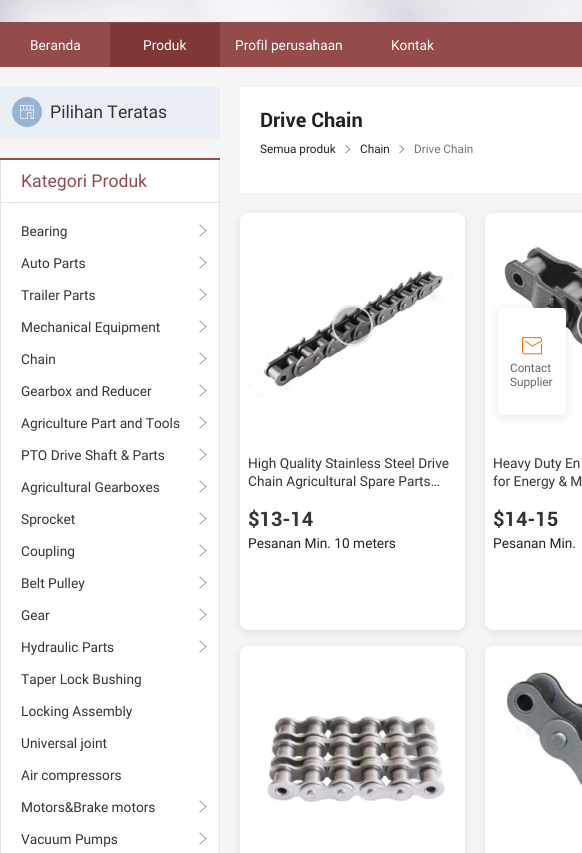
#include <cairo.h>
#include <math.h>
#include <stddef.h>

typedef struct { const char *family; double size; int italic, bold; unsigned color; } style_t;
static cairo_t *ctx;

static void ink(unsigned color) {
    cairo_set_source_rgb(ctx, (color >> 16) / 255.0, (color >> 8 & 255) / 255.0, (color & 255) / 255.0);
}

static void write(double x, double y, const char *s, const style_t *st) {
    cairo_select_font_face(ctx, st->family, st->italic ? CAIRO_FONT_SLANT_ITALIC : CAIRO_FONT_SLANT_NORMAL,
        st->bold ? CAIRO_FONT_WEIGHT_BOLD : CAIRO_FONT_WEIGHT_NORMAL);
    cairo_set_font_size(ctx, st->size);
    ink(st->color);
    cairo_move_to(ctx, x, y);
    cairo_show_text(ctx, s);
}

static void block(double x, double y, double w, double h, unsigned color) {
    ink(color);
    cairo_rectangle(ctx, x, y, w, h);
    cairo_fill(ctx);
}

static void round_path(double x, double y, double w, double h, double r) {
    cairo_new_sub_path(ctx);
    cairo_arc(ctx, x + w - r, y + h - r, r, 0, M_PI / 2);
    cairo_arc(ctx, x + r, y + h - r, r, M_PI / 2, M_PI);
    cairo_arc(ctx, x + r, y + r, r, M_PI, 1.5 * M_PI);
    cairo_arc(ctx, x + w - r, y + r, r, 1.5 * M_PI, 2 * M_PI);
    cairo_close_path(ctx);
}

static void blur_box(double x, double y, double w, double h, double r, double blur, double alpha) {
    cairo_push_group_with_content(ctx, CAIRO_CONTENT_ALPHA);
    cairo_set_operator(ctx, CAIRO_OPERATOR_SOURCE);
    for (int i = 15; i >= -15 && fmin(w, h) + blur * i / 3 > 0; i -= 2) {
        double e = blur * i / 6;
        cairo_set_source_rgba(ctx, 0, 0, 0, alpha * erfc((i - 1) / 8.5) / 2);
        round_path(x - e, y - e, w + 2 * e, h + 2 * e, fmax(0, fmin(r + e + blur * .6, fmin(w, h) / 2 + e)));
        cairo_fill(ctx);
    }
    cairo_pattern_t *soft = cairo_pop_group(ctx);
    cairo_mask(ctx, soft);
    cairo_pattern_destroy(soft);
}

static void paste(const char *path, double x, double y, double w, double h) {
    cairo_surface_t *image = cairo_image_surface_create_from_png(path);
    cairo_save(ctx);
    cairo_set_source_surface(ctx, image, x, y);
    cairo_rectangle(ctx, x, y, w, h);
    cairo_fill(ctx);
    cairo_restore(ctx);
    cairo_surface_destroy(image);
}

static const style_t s1 = {"Roboto", 14, 0, 0, 0xffffff};
static const style_t s2 = {"Roboto", 18, 0, 0, 0x333333};
static const style_t s3 = {"Roboto", 18, 0, 0, 0x934b4c};
static const style_t s4 = {"Roboto", 14, 0, 0, 0x333333};
static const style_t s5 = {"Roboto", 20, 0, 1, 0x222222};
static const style_t s6 = {"Roboto", 12, 0, 0, 0x222222};
static const style_t s7 = {"Roboto", 12, 0, 0, 0x767676};
static const style_t s8 = {"Roboto", 20, 0, 1, 0x333333};
static const style_t s9 = {"Roboto", 14, 0, 0, 0x222222};
static const style_t s10 = {"Roboto", 12, 0, 0, 0x666666};

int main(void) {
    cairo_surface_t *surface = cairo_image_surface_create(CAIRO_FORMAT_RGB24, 582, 853);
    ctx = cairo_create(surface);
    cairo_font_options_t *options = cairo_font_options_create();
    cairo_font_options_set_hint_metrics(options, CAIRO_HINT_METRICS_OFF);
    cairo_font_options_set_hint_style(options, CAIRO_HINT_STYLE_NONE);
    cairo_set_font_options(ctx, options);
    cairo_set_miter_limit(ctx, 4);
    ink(0xf5f5f5);
    cairo_paint(ctx);
    paste("pic1.png", 0, 0, 582, 23);
    block(0, 23, 582, 44, 0x934b4c);
    write(30, 50, "Beranda", &s1);
    block(110, 23, 110, 44, 0x7f3738);
    write(143, 50, "Produk", &s1);
    write(235, 50, "Profil perusahaan", &s1);
    write(391, 50, "Kontak", &s1);
    block(0, 87, 220, 51, 0xe9eff5);
    ink(0x97b3d5);
    cairo_new_path(ctx);
    cairo_arc(ctx, 27, 112, 15, 0, 2 * M_PI);
    cairo_fill(ctx);
    paste("pic2.png", 20, 105, 14, 14);
    write(50, 118, "Pilihan Teratas", &s2);
    block(1, 160, 218, 693, 0xffffff);
    block(0, 158, 220, 2, 0x934b4c);
    block(219, 160, 1, 693, 0xdbe3ef);
    block(0, 160, 1, 693, 0xdbe3ef);
    block(1, 202, 218, 1, 0xdbe3ef);
    write(21, 187, "Kategori Produk", &s3);
    write(21, 236, "Bearing", &s4);
    paste("pic3.png", 199, 224, 8, 13);
    write(21, 268, "Auto Parts", &s4);
    paste("pic3.png", 199, 256, 8, 13);
    write(21, 300, "Trailer Parts", &s4);
    paste("pic3.png", 199, 288, 8, 13);
    write(21, 332, "Mechanical Equipment", &s4);
    paste("pic3.png", 199, 320, 8, 13);
    write(21, 364, "Chain", &s4);
    paste("pic3.png", 199, 352, 8, 13);
    write(21, 396, "Gearbox and Reducer", &s4);
    paste("pic3.png", 199, 384, 8, 13);
    write(21, 428, "Agriculture Part and Tools", &s4);
    paste("pic3.png", 199, 416, 8, 13);
    write(21, 460, "PTO Drive Shaft & Parts", &s4);
    paste("pic3.png", 199, 448, 8, 13);
    write(21, 492, "Agricultural Gearboxes", &s4);
    paste("pic3.png", 199, 480, 8, 13);
    write(21, 524, "Sprocket", &s4);
    paste("pic3.png", 199, 512, 8, 13);
    write(21, 556, "Coupling", &s4);
    paste("pic3.png", 199, 544, 8, 13);
    write(21, 588, "Belt Pulley", &s4);
    paste("pic3.png", 199, 576, 8, 13);
    write(21, 620, "Gear", &s4);
    paste("pic3.png", 199, 608, 8, 13);
    write(21, 652, "Hydraulic Parts", &s4);
    paste("pic3.png", 199, 640, 8, 13);
    write(21, 684, "Taper Lock Bushing", &s4);
    write(21, 716, "Locking Assembly", &s4);
    write(21, 748, "Universal joint", &s4);
    write(21, 780, "Air compressors", &s4);
    write(21, 812, "Motors&Brake motors", &s4);
    paste("pic3.png", 199, 800, 8, 13);
    write(21, 844, "Vacuum Pumps", &s4);
    paste("pic3.png", 199, 832, 8, 13);
    block(240, 87, 342, 106, 0xffffff);
    write(260, 127, "Drive Chain", &s5);
    write(260, 153, "Semua produk", &s6);
    paste("pic4.png", 345, 145, 6, 9);
    write(360, 153, "Chain", &s6);
    paste("pic5.png", 399, 145, 5, 9);
    write(414, 153, "Drive Chain", &s7);
    ink(0x000000);
    blur_box(240, 215, 225, 417, 8, 4, 0.1);
    ink(0xffffff);
    round_path(240, 213, 225, 417, 8);
    cairo_fill(ctx);
    paste("pic6.png", 248, 221, 209, 209);
    cairo_set_source_rgba(ctx, 0, 0, 0, 0.27);
    cairo_arc(ctx, 352.5, 325.5, 20.5, 0, 2 * M_PI);
    cairo_fill(ctx);
    cairo_arc(ctx, 352.5, 325.5, 19.5, 0, 2 * M_PI);
    cairo_set_source_rgba(ctx, 1, 1, 1, 0.72);
    cairo_stroke(ctx);
    write(248, 468, "High Quality Stainless Steel Drive", &s4);
    write(248, 486, "Chain Agricultural Spare Parts…", &s4);
    write(248, 526, "$13-14", &s8);
    write(248, 548, "Pesanan Min. 10 meters", &s9);
    ink(0x000000);
    blur_box(485, 215, 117, 417, 8, 4, 0.1);
    ink(0xffffff);
    round_path(485, 213, 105, 417, 8);
    cairo_fill(ctx);
    paste("pic7.png", 493, 221, 89, 209);
    cairo_set_source_rgba(ctx, 0, 0, 0, 0.27);
    round_path(577, 305, 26, 41, 20.5);
    cairo_fill(ctx);
    round_path(578, 306, 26, 39, 19.5);
    cairo_set_source_rgba(ctx, 1, 1, 1, 0.72);
    cairo_stroke(ctx);
    write(493, 468, "Heavy Duty En", &s4);
    write(493, 486, "for Energy & M", &s4);
    write(493, 526, "$14-15", &s8);
    write(493, 548, "Pesanan Min.", &s9);
    ink(0x000000);
    blur_box(240, 648, 225, 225, 8, 4, 0.1);
    ink(0xffffff);
    round_path(240, 646, 225, 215, 8);
    cairo_fill(ctx);
    paste("pic8.png", 267, 715, 178, 87);
    ink(0x000000);
    blur_box(485, 648, 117, 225, 8, 4, 0.1);
    ink(0xffffff);
    round_path(485, 646, 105, 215, 8);
    cairo_fill(ctx);
    paste("pic9.png", 505, 672, 77, 115);
    ink(0x000000);
    blur_box(498, 310, 68, 107, 4, 5, 0.1);
    ink(0xffffff);
    round_path(498, 308, 68, 107, 4);
    cairo_fill(ctx);
    paste("pic10.png", 522, 337, 20, 18);
    write(510, 372, "Contact", &s10);
    write(510, 386, "Supplier", &s10);
    cairo_surface_write_to_png(surface, "screenshot.png");
    cairo_font_options_destroy(options);
    cairo_destroy(ctx);
    cairo_surface_destroy(surface);
    return 0;
}
